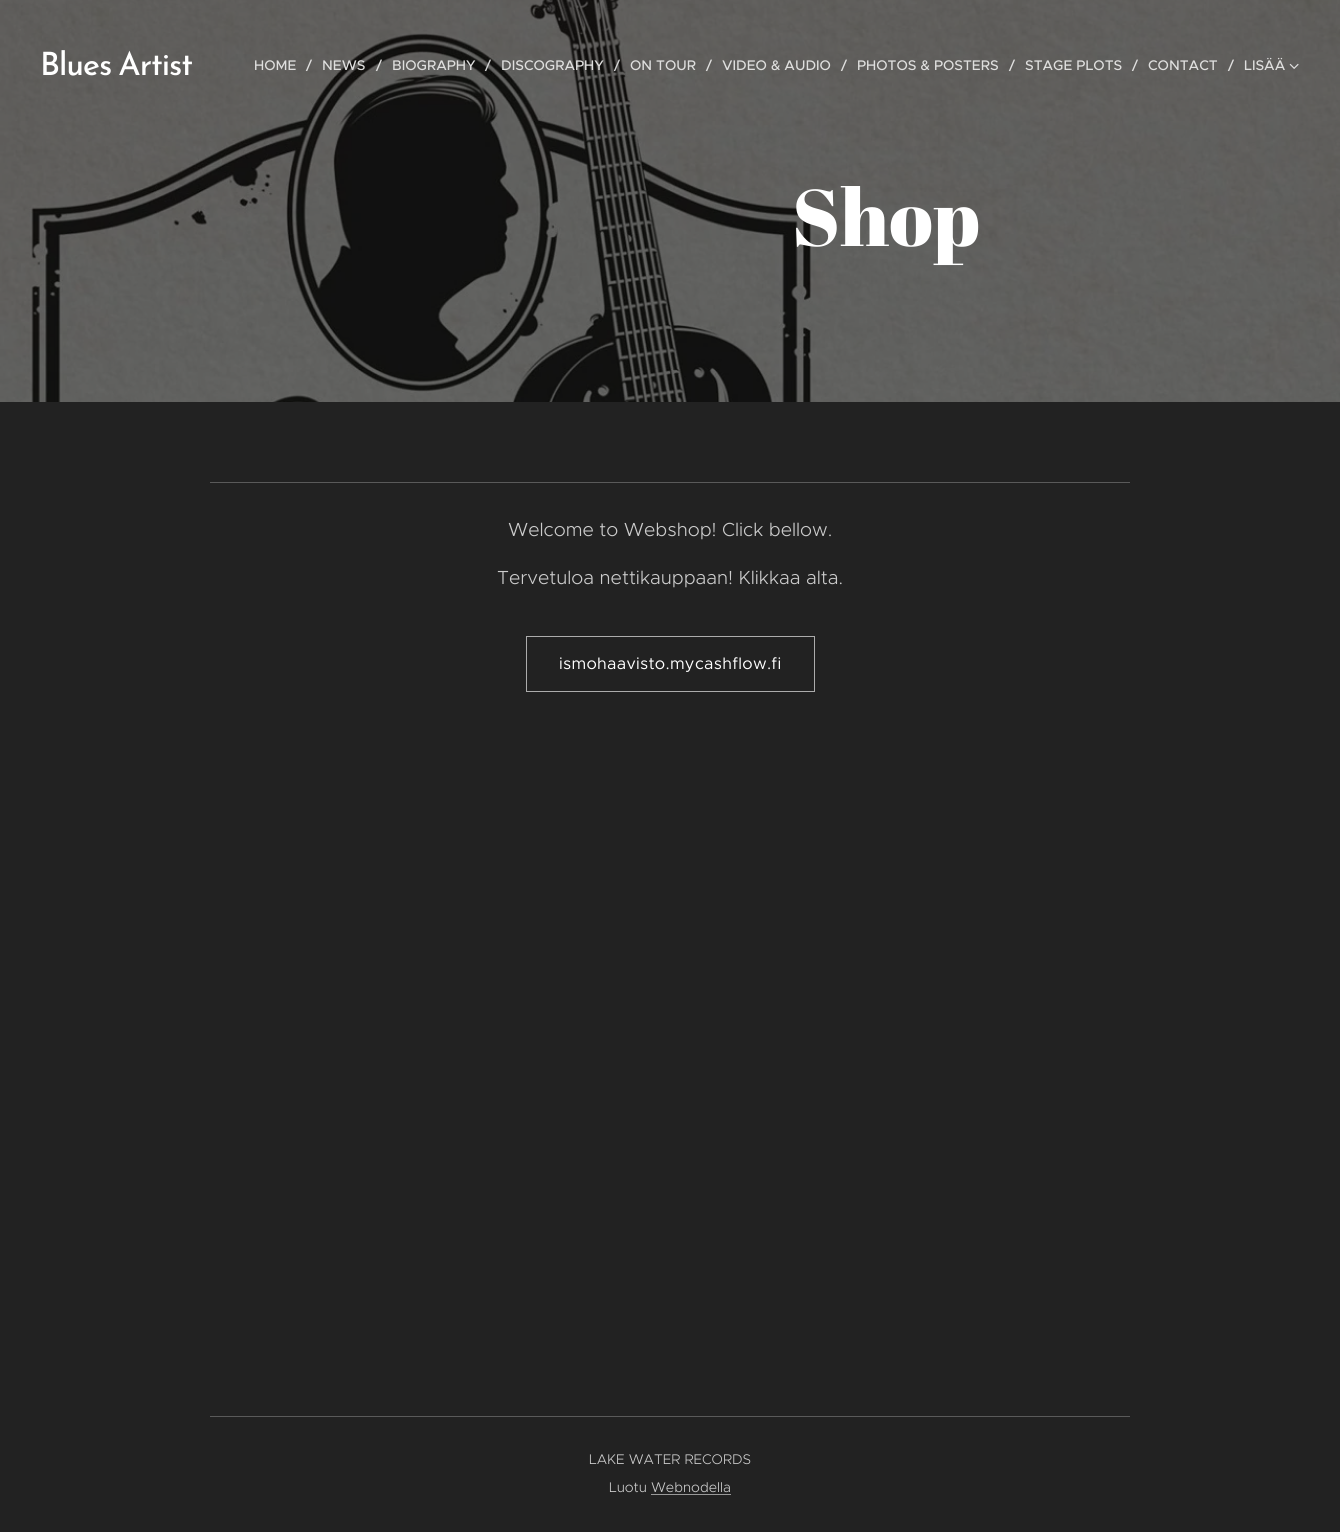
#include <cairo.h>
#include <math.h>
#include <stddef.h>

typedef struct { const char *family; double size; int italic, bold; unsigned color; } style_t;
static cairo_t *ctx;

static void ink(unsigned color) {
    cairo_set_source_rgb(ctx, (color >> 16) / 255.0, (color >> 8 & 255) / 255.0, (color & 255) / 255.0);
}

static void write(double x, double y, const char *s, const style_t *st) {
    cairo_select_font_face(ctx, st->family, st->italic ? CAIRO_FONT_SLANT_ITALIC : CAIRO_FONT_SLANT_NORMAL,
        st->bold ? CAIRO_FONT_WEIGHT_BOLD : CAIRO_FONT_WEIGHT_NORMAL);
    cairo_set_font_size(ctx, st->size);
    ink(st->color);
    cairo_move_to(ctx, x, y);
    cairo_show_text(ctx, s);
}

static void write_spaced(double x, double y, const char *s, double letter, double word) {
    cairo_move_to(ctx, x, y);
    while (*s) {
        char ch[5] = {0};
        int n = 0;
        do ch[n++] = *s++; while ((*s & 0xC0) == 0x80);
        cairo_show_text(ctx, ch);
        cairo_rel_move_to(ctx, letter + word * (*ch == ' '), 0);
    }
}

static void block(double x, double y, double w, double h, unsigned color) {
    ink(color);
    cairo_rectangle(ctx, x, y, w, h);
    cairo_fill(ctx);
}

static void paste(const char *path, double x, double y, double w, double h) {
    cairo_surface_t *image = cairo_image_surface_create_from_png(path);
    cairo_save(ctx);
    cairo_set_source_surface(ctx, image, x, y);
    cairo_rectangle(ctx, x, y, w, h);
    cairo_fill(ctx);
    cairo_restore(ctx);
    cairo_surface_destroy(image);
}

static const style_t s1 = {"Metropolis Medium", 14, 0, 0, 0xdfdfde};
static const style_t s2 = {"Metropolis Medium", 14, 0, 0, 0xd4d4d4};
static const style_t s3 = {"Abril Fatface", 80, 0, 0, 0xffffff};
static const style_t s4 = {"Metropolis Light", 19, 0, 0, 0xcccccc};
static const style_t s5 = {"Metropolis Light", 14, 0, 0, 0xcccccc};

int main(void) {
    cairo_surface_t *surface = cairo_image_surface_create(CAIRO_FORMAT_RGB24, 1340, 1532);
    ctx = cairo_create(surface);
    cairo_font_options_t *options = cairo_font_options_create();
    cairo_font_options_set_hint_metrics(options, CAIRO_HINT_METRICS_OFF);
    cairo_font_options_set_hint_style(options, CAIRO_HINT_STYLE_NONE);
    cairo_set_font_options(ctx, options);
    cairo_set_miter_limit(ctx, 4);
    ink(0x222222);
    cairo_paint(ctx);
    paste("pic2.png", 0, 0, 1340, 402);
    cairo_select_font_face(ctx, "Josefin Sans Medium", CAIRO_FONT_SLANT_NORMAL, CAIRO_FONT_WEIGHT_NORMAL);
    cairo_set_font_size(ctx, 32);
    ink(0xffffff);
    write_spaced(40, 75, "Blues Artist", -1, -2);
    write(254, 70, "HOME", &s1);
    write(306, 70, "/", &s1);
    write(322, 70, "NEWS", &s1);
    write(376, 70, "/", &s1);
    write(392, 70, "BIOGRAPHY", &s1);
    write(485, 70, "/", &s2);
    write(501, 70, "DISCOGRAPHY", &s1);
    write(614, 70, "/", &s2);
    write(630, 70, "ON TOUR", &s1);
    write(706, 70, "/", &s1);
    write(722, 70, "VIDEO & AUDIO", &s1);
    write(841, 70, "/", &s1);
    write(857, 70, "PHOTOS & POSTERS", &s1);
    write(1009, 70, "/", &s1);
    write(1025, 70, "STAGE PLOTS", &s1);
    write(1132, 70, "/", &s1);
    write(1148, 70, "CONTACT", &s1);
    write(1228, 70, "/", &s1);
    write(1244, 70, "LISÄÄ", &s1);
    paste("pic1.png", 1289, 63, 10, 6);
    write(792, 246, "Shop", &s3);
    block(210, 482, 920, 1, 0x5a5a5a);
    write(508, 536, "Welcome to Webshop! Click bellow.", &s4);
    write(497, 584, "Tervetuloa nettikauppaan! Klikkaa alta.", &s4);
    cairo_rectangle(ctx, 526.5, 636.5, 288, 55);
    ink(0xacacac);
    cairo_set_line_width(ctx, 1);
    cairo_stroke(ctx);
    cairo_select_font_face(ctx, "Metropolis", CAIRO_FONT_SLANT_NORMAL, CAIRO_FONT_WEIGHT_NORMAL);
    cairo_set_font_size(ctx, 16.4);
    ink(0xffffff);
    write_spaced(559, 669, "ismohaavisto.mycashflow.fi", 0.3, 0);
    block(210, 1416, 920, 1, 0x5a5a5a);
    write(589, 1464, "LAKE WATER RECORDS", &s5);
    write(609, 1492, "Luotu Webnodella", &s5);
    block(651, 1494, 80, 1, 0x999999);
    cairo_surface_write_to_png(surface, "screenshot.png");
    cairo_font_options_destroy(options);
    cairo_destroy(ctx);
    cairo_surface_destroy(surface);
    return 0;
}
